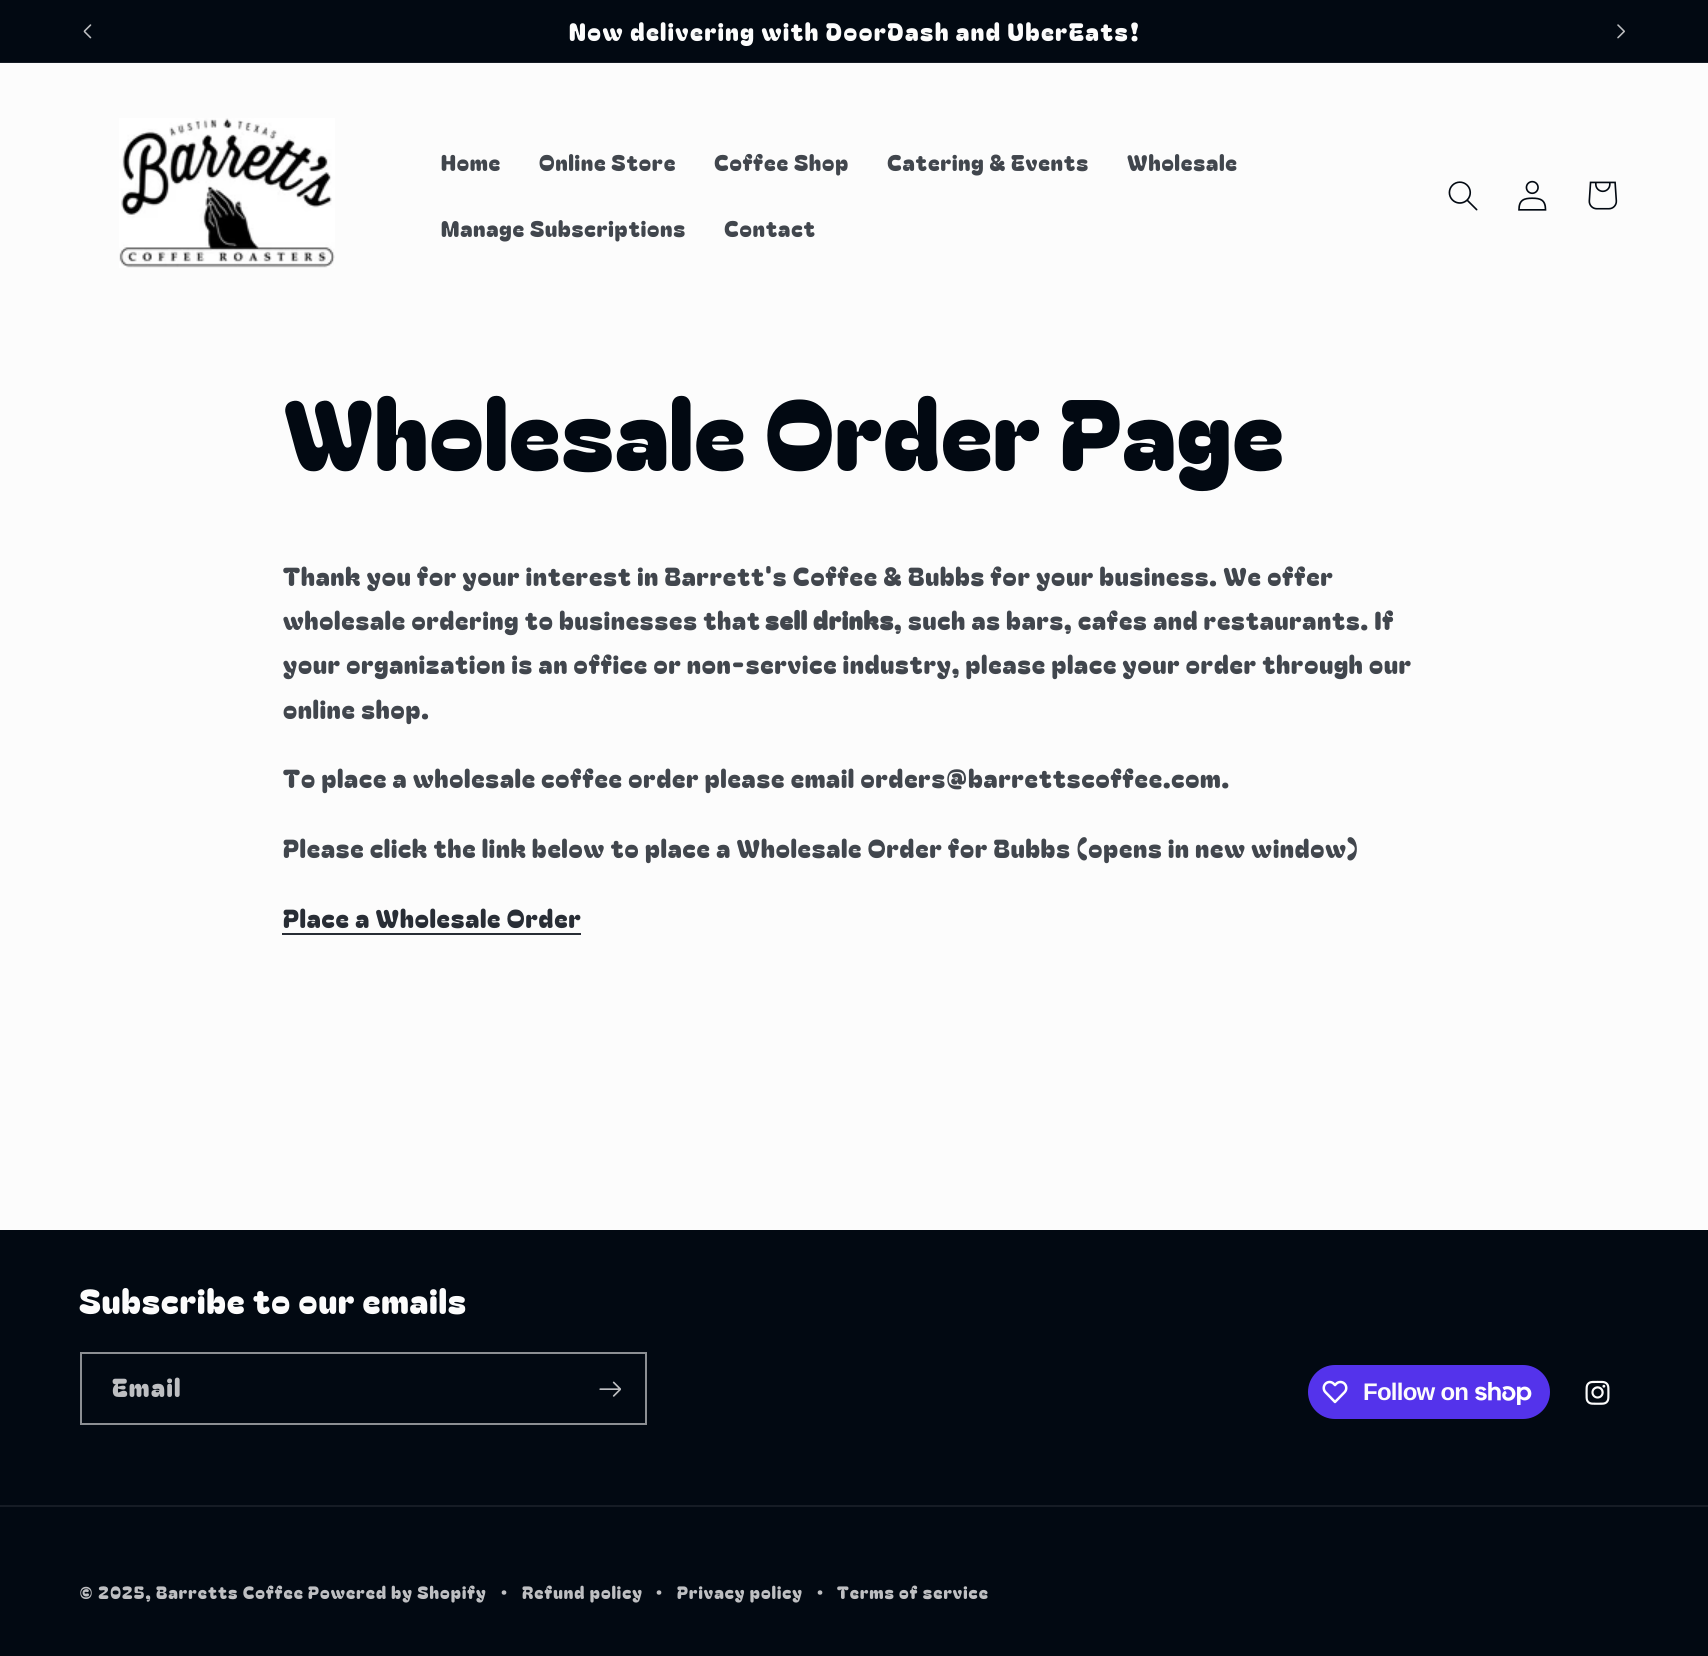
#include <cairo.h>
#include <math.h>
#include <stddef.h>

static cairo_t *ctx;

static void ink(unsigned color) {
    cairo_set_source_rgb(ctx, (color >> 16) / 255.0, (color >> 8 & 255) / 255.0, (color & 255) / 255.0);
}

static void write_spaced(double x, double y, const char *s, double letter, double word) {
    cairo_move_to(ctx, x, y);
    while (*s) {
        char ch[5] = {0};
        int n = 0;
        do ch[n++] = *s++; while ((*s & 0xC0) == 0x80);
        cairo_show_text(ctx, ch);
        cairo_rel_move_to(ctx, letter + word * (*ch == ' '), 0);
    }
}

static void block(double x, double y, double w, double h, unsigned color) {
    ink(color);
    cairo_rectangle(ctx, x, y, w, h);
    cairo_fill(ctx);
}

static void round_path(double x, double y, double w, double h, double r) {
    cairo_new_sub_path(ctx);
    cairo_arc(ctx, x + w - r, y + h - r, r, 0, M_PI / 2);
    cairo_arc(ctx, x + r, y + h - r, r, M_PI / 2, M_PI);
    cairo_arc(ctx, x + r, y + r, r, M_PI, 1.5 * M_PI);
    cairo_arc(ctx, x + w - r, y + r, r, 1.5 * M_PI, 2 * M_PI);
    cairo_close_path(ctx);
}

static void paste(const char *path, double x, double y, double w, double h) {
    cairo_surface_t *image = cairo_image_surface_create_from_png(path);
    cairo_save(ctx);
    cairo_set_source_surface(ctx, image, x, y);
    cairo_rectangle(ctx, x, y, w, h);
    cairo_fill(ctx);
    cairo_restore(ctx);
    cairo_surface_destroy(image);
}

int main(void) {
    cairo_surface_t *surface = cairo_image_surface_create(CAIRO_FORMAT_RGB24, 1708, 1656);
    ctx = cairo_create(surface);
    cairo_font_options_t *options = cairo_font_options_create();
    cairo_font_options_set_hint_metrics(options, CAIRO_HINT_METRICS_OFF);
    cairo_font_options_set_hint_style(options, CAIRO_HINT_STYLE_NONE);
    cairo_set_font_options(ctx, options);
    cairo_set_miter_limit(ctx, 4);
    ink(0xfcfcfc);
    cairo_paint(ctx);
    block(0, 0, 1708, 62, 0x020912);
    block(0, 62, 1708, 1, 0x161c25);
    paste("pic1.png", 83, 24, 9, 15);
    cairo_select_font_face(ctx, "Bagel Fat One", CAIRO_FONT_SLANT_NORMAL, CAIRO_FONT_WEIGHT_NORMAL);
    cairo_set_font_size(ctx, 24.4);
    ink(0xfcfcfc);
    write_spaced(569, 41, "Now delivering with DoorDash and UberEats!", 1.6, 0);
    paste("pic2.png", 1617, 24, 8, 15);
    paste("pic3.png", 119, 118, 216, 150);
    cairo_set_font_size(ctx, 22);
    ink(0x41464d);
    write_spaced(441, 171, "Home", 0.95, 0);
    write_spaced(539, 171, "Online Store", 0.95, 0);
    write_spaced(714, 171, "Coffee Shop", 0.95, 0);
    write_spaced(887, 171, "Catering & Events", 0.95, 0);
    write_spaced(1127, 171, "Wholesale", 0.95, 0);
    write_spaced(441, 237, "Manage Subscriptions", 0.95, 0);
    write_spaced(724, 237, "Contact", 0.95, 0);
    paste("pic4.png", 1448, 181, 30, 30);
    paste("pic5.png", 1518, 180, 29, 31);
    paste("pic6.png", 1588, 181, 30, 29);
    cairo_set_font_size(ctx, 97.5);
    ink(0x020912);
    write_spaced(283, 471, "Wholesale Order Page", 1.1, 0);
    cairo_set_font_size(ctx, 25.2);
    ink(0x41464d);
    write_spaced(283, 586, "Thank you for your interest in Barrett's Coffee & Bubbs for your business. We offer", 0.95, 0);
    write_spaced(283, 630, "wholesale ordering to businesses that", 0.95, 0);
    cairo_select_font_face(ctx, "Bagel Fat One", CAIRO_FONT_SLANT_NORMAL, CAIRO_FONT_WEIGHT_BOLD);
    write_spaced(765, 630, "sell drinks", 0.95, 0);
    cairo_select_font_face(ctx, "Bagel Fat One", CAIRO_FONT_SLANT_NORMAL, CAIRO_FONT_WEIGHT_NORMAL);
    write_spaced(894, 630, ", such as bars, cafes and restaurants. If", 0.95, 0);
    write_spaced(283, 674, "your organization is an office or non-service industry, please place your order through our", 0.95, 0);
    write_spaced(283, 719, "online shop.", 0.95, 0);
    write_spaced(283, 788, "To place a wholesale coffee order please email orders@barrettscoffee.com.", 0.95, 0);
    write_spaced(283, 858, "Please click the link below to place a Wholesale Order for Bubbs (opens in new window)", 0.95, 0);
    ink(0x282d35);
    write_spaced(283, 928, "Place a Wholesale Order", 0.95, 0);
    block(282, 933, 299, 2, 0x282d35);
    block(0, 1230, 1708, 426, 0x020912);
    cairo_set_font_size(ctx, 33.75);
    ink(0xfcfcfc);
    write_spaced(79, 1314, "Subscribe to our emails", 1.1, 0);
    cairo_rectangle(ctx, 81, 1353, 565, 71);
    ink(0x8c8f93);
    cairo_stroke(ctx);
    cairo_set_font_size(ctx, 25.2);
    ink(0xbebfc2);
    write_spaced(112, 1397, "Email", 1.6, 0);
    paste("pic7.png", 599, 1381, 22, 16);
    ink(0x5433eb);
    round_path(1308, 1365, 242, 54, 27);
    cairo_fill(ctx);
    paste("pic8.png", 1322, 1380, 26, 24);
    cairo_select_font_face(ctx, "Liberation Sans", CAIRO_FONT_SLANT_NORMAL, CAIRO_FONT_WEIGHT_BOLD);
    cairo_set_font_size(ctx, 24);
    ink(0xfcfcfc);
    write_spaced(1363, 1400, "Follow on", -0.75, 0);
    paste("pic9.png", 1475, 1382, 57, 23);
    paste("pic10.png", 1585, 1380, 25, 25);
    block(0, 1505, 1708, 2, 0x161c25);
    cairo_select_font_face(ctx, "Bagel Fat One", CAIRO_FONT_SLANT_NORMAL, CAIRO_FONT_WEIGHT_NORMAL);
    cairo_set_font_size(ctx, 17.3);
    ink(0xbebfc2);
    write_spaced(79, 1599, "© 2025, Barretts Coffee Powered by Shopify", 1.1, 0);
    cairo_set_font_size(ctx, 19);
    write_spaced(500, 1599, "·", 1.1, 0);
    cairo_set_font_size(ctx, 17.3);
    write_spaced(522, 1599, "Refund policy", 1.1, 0);
    cairo_set_font_size(ctx, 19);
    write_spaced(655, 1599, "·", 1.1, 0);
    cairo_set_font_size(ctx, 17.3);
    write_spaced(677, 1599, "Privacy policy", 1.1, 0);
    cairo_set_font_size(ctx, 19);
    write_spaced(816, 1599, "·", 1.1, 0);
    cairo_set_font_size(ctx, 17.3);
    write_spaced(837, 1599, "Terms of service", 1.1, 0);
    cairo_surface_write_to_png(surface, "screenshot.png");
    cairo_font_options_destroy(options);
    cairo_destroy(ctx);
    cairo_surface_destroy(surface);
    return 0;
}
